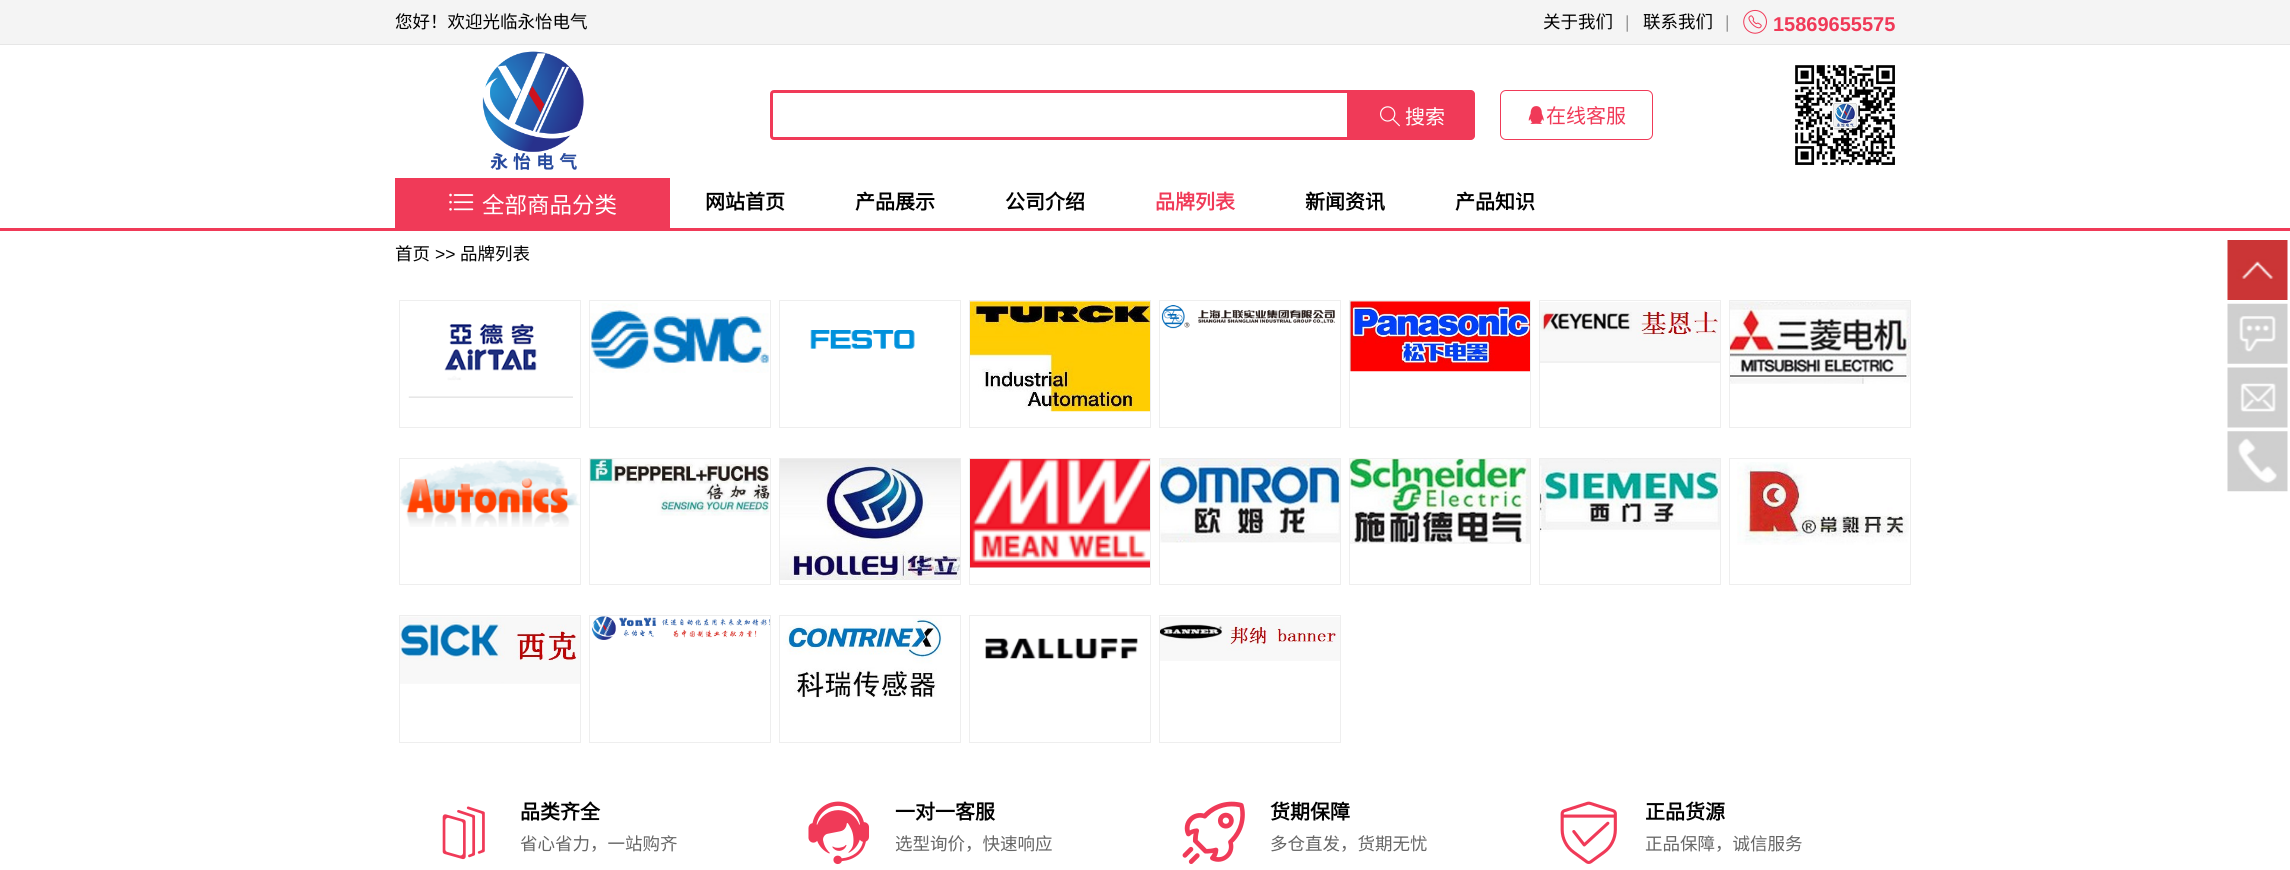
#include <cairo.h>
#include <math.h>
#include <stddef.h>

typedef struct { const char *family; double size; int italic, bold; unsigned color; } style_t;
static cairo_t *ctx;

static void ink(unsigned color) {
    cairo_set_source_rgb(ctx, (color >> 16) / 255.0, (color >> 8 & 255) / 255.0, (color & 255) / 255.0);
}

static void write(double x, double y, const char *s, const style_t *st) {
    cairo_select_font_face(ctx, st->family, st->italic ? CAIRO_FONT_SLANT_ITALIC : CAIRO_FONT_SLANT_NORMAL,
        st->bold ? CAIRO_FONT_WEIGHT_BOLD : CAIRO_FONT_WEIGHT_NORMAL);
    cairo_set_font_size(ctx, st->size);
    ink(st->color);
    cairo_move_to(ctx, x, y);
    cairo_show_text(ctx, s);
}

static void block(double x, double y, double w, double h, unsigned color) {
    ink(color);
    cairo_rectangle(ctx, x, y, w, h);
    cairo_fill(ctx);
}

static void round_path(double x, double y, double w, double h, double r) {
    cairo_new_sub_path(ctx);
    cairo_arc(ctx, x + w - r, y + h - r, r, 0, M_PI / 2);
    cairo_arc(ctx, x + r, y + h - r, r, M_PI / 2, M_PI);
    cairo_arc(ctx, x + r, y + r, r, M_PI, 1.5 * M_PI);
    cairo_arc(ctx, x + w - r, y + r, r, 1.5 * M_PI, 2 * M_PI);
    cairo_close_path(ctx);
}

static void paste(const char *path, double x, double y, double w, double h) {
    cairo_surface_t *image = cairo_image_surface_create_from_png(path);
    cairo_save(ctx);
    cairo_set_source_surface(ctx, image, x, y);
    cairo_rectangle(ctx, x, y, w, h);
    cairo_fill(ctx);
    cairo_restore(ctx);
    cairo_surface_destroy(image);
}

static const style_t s1 = {"Noto Sans CJK SC", 17.5, 0, 0, 0x000000};
static const style_t s2 = {"Liberation Sans", 17.5, 0, 0, 0x999999};
static const style_t s3 = {"Liberation Sans", 20, 0, 1, 0xf03a58};
static const style_t s4 = {"Noto Sans CJK SC", 20, 0, 0, 0xffffff};
static const style_t s5 = {"Noto Sans CJK SC", 20, 0, 0, 0xf03a58};
static const style_t s6 = {"Noto Sans CJK SC", 22.5, 0, 0, 0xffffff};
static const style_t s7 = {"Noto Sans CJK SC", 20, 0, 1, 0x000000};
static const style_t s8 = {"Noto Sans CJK SC", 20, 0, 1, 0xf03a58};
static const style_t s9 = {"Liberation Sans", 17.5, 0, 0, 0x000000};
static const style_t s10 = {"Noto Sans CJK SC", 17.5, 0, 0, 0x666666};

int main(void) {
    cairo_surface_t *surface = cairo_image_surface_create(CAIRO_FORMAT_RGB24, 2290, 870);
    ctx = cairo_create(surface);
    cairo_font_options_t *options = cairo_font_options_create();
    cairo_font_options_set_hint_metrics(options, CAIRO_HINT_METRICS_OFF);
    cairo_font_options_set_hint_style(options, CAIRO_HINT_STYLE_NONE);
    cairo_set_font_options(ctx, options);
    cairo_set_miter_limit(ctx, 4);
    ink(0xffffff);
    cairo_paint(ctx);
    block(0, 0, 2290, 44, 0xf4f4f4);
    block(0, 44, 2290, 1, 0xe6e6e6);
    write(395, 28, "您好！欢迎光临永怡电气", &s1);
    write(1543, 28, "关于我们", &s1);
    write(1625, 28, "|", &s2);
    write(1643, 28, "联系我们", &s1);
    write(1725, 28, "|", &s2);
    paste("pic1.png", 1743, 9, 24, 25);
    write(1773, 31, "15869655575", &s3);
    paste("pic2.png", 482, 51, 102, 119);
    cairo_new_path(ctx);
    cairo_move_to(ctx, 774, 91.5);
    cairo_line_to(ctx, 1348.5, 91.5);
    cairo_line_to(ctx, 1348.5, 138.5);
    cairo_line_to(ctx, 774, 138.5);
    cairo_curve_to(ctx, 772.5, 138.5, 771.5, 137.5, 771.5, 136);
    cairo_line_to(ctx, 771.5, 94);
    cairo_curve_to(ctx, 771.5, 92.5, 772.5, 91.5, 774, 91.5);
    cairo_close_path(ctx);
    cairo_set_line_width(ctx, 3);
    cairo_stroke(ctx);
    cairo_new_path(ctx);
    cairo_move_to(ctx, 1350, 90);
    cairo_line_to(ctx, 1471, 90);
    cairo_curve_to(ctx, 1473, 90, 1475, 92, 1475, 94);
    cairo_line_to(ctx, 1475, 136);
    cairo_curve_to(ctx, 1475, 138, 1473, 140, 1471, 140);
    cairo_line_to(ctx, 1350, 140);
    cairo_close_path(ctx);
    cairo_fill(ctx);
    paste("pic3.png", 1380, 106, 20, 21);
    write(1405, 124, "搜索", &s4);
    round_path(1500.5, 90.5, 152, 49, 5.5);
    ink(0xf03a58);
    cairo_set_line_width(ctx, 1);
    cairo_stroke(ctx);
    paste("pic4.png", 1528, 106, 16, 18);
    write(1546, 123, "在线客服", &s5);
    paste("pic5.png", 1795, 65, 100, 100);
    block(0, 228, 2290, 3, 0xf03a58);
    block(395, 178, 275, 50, 0xf03a58);
    paste("pic6.png", 449, 193, 25, 18);
    write(482, 213, "全部商品分类", &s6);
    write(705, 209, "网站首页", &s7);
    write(855, 209, "产品展示", &s7);
    write(1005, 209, "公司介绍", &s7);
    write(1155, 209, "品牌列表", &s8);
    write(1305, 209, "新闻资讯", &s7);
    write(1455, 209, "产品知识", &s7);
    write(395, 260, "首页", &s1);
    write(435, 260, ">>", &s9);
    write(460, 260, "品牌列表", &s1);
    cairo_rectangle(ctx, 399.5, 300.5, 181, 127);
    ink(0xeeeeee);
    cairo_stroke(ctx);
    paste("pic7.png", 408, 324, 165, 74);
    cairo_rectangle(ctx, 589.5, 300.5, 181, 127);
    cairo_stroke(ctx);
    paste("pic8.png", 590, 303, 179, 70);
    cairo_rectangle(ctx, 779.5, 300.5, 181, 127);
    cairo_stroke(ctx);
    paste("pic9.png", 810, 330, 105, 19);
    cairo_rectangle(ctx, 969.5, 300.5, 181, 127);
    cairo_stroke(ctx);
    paste("pic10.png", 970, 301, 180, 111);
    cairo_rectangle(ctx, 1159.5, 300.5, 181, 127);
    cairo_stroke(ctx);
    paste("pic11.png", 1161, 305, 174, 24);
    cairo_rectangle(ctx, 1349.5, 300.5, 181, 127);
    cairo_stroke(ctx);
    paste("pic12.png", 1350, 301, 180, 71);
    cairo_rectangle(ctx, 1539.5, 300.5, 181, 127);
    cairo_stroke(ctx);
    paste("pic13.png", 1540, 302, 180, 61);
    cairo_rectangle(ctx, 1729.5, 300.5, 181, 127);
    cairo_stroke(ctx);
    paste("pic14.png", 1730, 301, 180, 83);
    cairo_rectangle(ctx, 399.5, 458.5, 181, 126);
    cairo_stroke(ctx);
    paste("pic15.png", 400, 460, 180, 67);
    cairo_rectangle(ctx, 589.5, 458.5, 181, 126);
    cairo_stroke(ctx);
    paste("pic16.png", 590, 458, 180, 58);
    cairo_rectangle(ctx, 779.5, 458.5, 181, 126);
    cairo_stroke(ctx);
    paste("pic17.png", 780, 459, 180, 121);
    cairo_rectangle(ctx, 969.5, 458.5, 181, 126);
    cairo_stroke(ctx);
    paste("pic18.png", 970, 458, 180, 110);
    cairo_rectangle(ctx, 1159.5, 458.5, 181, 126);
    cairo_stroke(ctx);
    paste("pic19.png", 1160, 459, 180, 84);
    cairo_rectangle(ctx, 1349.5, 458.5, 181, 126);
    cairo_stroke(ctx);
    paste("pic20.png", 1350, 458, 180, 86);
    cairo_rectangle(ctx, 1539.5, 458.5, 181, 126);
    cairo_stroke(ctx);
    paste("pic21.png", 1540, 459, 180, 73);
    cairo_rectangle(ctx, 1729.5, 458.5, 181, 126);
    cairo_stroke(ctx);
    paste("pic22.png", 1737, 462, 172, 83);
    cairo_rectangle(ctx, 399.5, 615.5, 181, 127);
    cairo_stroke(ctx);
    paste("pic23.png", 400, 616, 180, 68);
    cairo_rectangle(ctx, 589.5, 615.5, 181, 127);
    cairo_stroke(ctx);
    paste("pic24.png", 591, 616, 179, 24);
    cairo_rectangle(ctx, 779.5, 615.5, 181, 127);
    cairo_stroke(ctx);
    paste("pic25.png", 783, 616, 159, 82);
    cairo_rectangle(ctx, 969.5, 615.5, 181, 127);
    cairo_stroke(ctx);
    paste("pic26.png", 985, 638, 153, 21);
    cairo_rectangle(ctx, 1159.5, 615.5, 181, 127);
    cairo_stroke(ctx);
    paste("pic27.png", 1160, 617, 180, 44);
    paste("pic28.png", 2227, 240, 61, 60);
    paste("pic29.png", 2227, 303, 61, 61);
    paste("pic30.png", 2227, 367, 61, 61);
    paste("pic31.png", 2227, 431, 61, 61);
    paste("pic32.png", 442, 806, 43, 54);
    write(520, 819, "品类齐全", &s7);
    write(520, 850, "省心省力，一站购齐", &s10);
    paste("pic33.png", 808, 801, 62, 64);
    write(895, 819, "一对一客服", &s7);
    write(895, 850, "选型询价，快速响应", &s10);
    paste("pic34.png", 1182, 801, 63, 63);
    write(1270, 819, "货期保障", &s7);
    write(1270, 850, "多仓直发，货期无忧", &s10);
    paste("pic35.png", 1560, 801, 57, 63);
    write(1645, 819, "正品货源", &s7);
    write(1645, 850, "正品保障，诚信服务", &s10);
    cairo_surface_write_to_png(surface, "screenshot.png");
    cairo_font_options_destroy(options);
    cairo_destroy(ctx);
    cairo_surface_destroy(surface);
    return 0;
}
